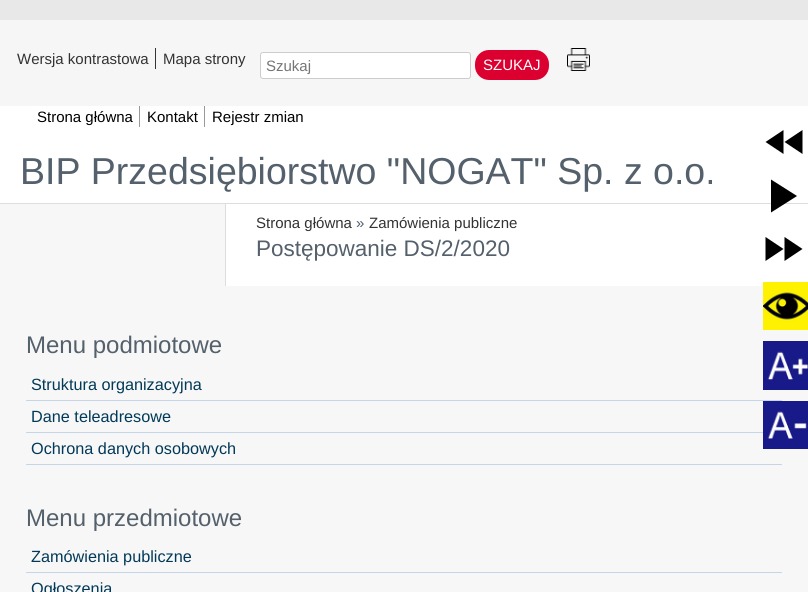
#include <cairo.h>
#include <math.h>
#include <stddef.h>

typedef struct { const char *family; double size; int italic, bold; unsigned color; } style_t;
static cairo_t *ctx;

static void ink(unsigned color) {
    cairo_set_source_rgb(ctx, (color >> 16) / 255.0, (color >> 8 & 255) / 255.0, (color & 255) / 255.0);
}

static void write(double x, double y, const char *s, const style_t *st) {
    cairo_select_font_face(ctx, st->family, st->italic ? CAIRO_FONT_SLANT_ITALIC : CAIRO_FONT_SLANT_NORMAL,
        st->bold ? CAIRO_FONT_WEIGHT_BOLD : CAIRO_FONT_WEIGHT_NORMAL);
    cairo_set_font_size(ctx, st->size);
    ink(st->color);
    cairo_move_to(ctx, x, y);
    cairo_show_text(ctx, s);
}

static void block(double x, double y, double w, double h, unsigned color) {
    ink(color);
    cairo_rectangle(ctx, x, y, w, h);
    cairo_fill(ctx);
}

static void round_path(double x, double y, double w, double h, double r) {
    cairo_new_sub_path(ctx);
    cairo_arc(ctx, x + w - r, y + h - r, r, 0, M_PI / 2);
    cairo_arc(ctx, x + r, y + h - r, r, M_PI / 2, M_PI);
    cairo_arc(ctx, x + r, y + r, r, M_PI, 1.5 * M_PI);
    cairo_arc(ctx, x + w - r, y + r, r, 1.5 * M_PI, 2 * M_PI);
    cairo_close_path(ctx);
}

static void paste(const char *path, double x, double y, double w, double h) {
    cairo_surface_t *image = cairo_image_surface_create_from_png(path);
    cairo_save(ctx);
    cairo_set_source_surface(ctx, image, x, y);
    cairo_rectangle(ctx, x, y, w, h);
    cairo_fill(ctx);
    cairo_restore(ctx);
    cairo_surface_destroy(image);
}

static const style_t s1 = {"Liberation Sans", 15, 0, 0, 0x333333};
static const style_t s2 = {"Liberation Sans", 15, 0, 0, 0x757575};
static const style_t s3 = {"Liberation Sans", 15, 0, 0, 0xffffff};
static const style_t s4 = {"Liberation Sans", 15, 0, 0, 0x000000};
static const style_t s5 = {"Liberation Sans", 37.5, 0, 0, 0x54606b};
static const style_t s6 = {"Liberation Sans", 15, 0, 0, 0x54606b};
static const style_t s7 = {"Liberation Sans", 22.5, 0, 0, 0x54606b};
static const style_t s8 = {"Liberation Sans", 24, 0, 0, 0x54606b};
static const style_t s9 = {"Liberation Sans", 16.25, 0, 0, 0x023958};

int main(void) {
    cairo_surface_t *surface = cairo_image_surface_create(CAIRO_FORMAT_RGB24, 808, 592);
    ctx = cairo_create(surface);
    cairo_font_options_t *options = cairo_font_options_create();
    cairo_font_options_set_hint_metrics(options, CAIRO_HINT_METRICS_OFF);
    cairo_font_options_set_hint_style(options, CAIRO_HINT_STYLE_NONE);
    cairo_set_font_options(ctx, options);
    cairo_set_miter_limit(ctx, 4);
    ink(0xe8e8e8);
    cairo_paint(ctx);
    block(0, 20, 808, 86, 0xf6f6f6);
    write(17, 64, "Wersja kontrastowa", &s1);
    block(155, 48, 1, 21, 0x333333);
    write(163, 64, "Mapa strony", &s1);
    ink(0xffffff);
    round_path(260.5, 52.5, 210, 26, 2.5);
    cairo_fill_preserve(ctx);
    ink(0xcccccc);
    cairo_set_line_width(ctx, 1);
    cairo_stroke(ctx);
    write(266, 71, "Szukaj", &s2);
    ink(0xdb002f);
    round_path(475, 50, 74, 30, 14);
    cairo_fill(ctx);
    write(483, 70, "SZUKAJ", &s3);
    paste("pic1.png", 567, 48, 23, 23);
    block(0, 106, 808, 180, 0xffffff);
    write(37, 122, "Strona główna", &s4);
    block(139, 106, 1, 21, 0x999999);
    write(147, 122, "Kontakt", &s4);
    block(204, 106, 1, 21, 0x999999);
    write(212, 122, "Rejestr zmian", &s4);
    block(0, 203, 808, 1, 0xdddddd);
    write(20, 184, "BIP Przedsiębiorstwo \"NOGAT\" Sp. z o.o.", &s5);
    block(0, 204, 225, 82, 0xf7f7f7);
    block(225, 204, 1, 82, 0xdddddd);
    write(256, 228, "Strona główna", &s1);
    write(356, 228, "»", &s6);
    write(369, 228, "Zamówienia publiczne", &s1);
    write(256, 256, "Postępowanie DS/2/2020", &s7);
    block(0, 286, 808, 306, 0xf7f7f7);
    write(26, 353, "Menu podmiotowe", &s8);
    block(26, 400, 756, 1, 0xc4d6e8);
    write(31, 390, "Struktura organizacyjna", &s9);
    block(26, 432, 737, 1, 0xc4d6e8);
    write(31, 422, "Dane teleadresowe", &s9);
    block(26, 464, 756, 1, 0xc4d6e8);
    write(31, 454, "Ochrona danych osobowych", &s9);
    write(26, 526, "Menu przedmiotowe", &s8);
    block(26, 572, 756, 1, 0xc4d6e8);
    write(31, 562, "Zamówienia publiczne", &s9);
    write(31, 594, "Ogłoszenia", &s9);
    ink(0x000000);
    cairo_new_path(ctx);
    cairo_move_to(ctx, 783.5, 154);
    cairo_line_to(ctx, 783.5, 130);
    cairo_line_to(ctx, 765.5, 142);
    cairo_close_path(ctx);
    cairo_move_to(ctx, 784.5, 142);
    cairo_line_to(ctx, 802.5, 154);
    cairo_line_to(ctx, 802.5, 130);
    cairo_close_path(ctx);
    cairo_fill(ctx);
    cairo_new_path(ctx);
    cairo_move_to(ctx, 771, 179.5);
    cairo_line_to(ctx, 771, 212.5);
    cairo_line_to(ctx, 797, 196);
    cairo_close_path(ctx);
    cairo_fill(ctx);
    cairo_new_path(ctx);
    cairo_move_to(ctx, 802.5, 249);
    cairo_line_to(ctx, 784.5, 237);
    cairo_line_to(ctx, 784.5, 261);
    cairo_close_path(ctx);
    cairo_move_to(ctx, 765.5, 237);
    cairo_line_to(ctx, 765.5, 261);
    cairo_line_to(ctx, 783.5, 249);
    cairo_close_path(ctx);
    cairo_fill(ctx);
    paste("pic2.png", 763, 282, 45, 48);
    paste("pic3.png", 763, 341, 45, 49);
    paste("pic4.png", 763, 401, 45, 48);
    cairo_surface_write_to_png(surface, "screenshot.png");
    cairo_font_options_destroy(options);
    cairo_destroy(ctx);
    cairo_surface_destroy(surface);
    return 0;
}
